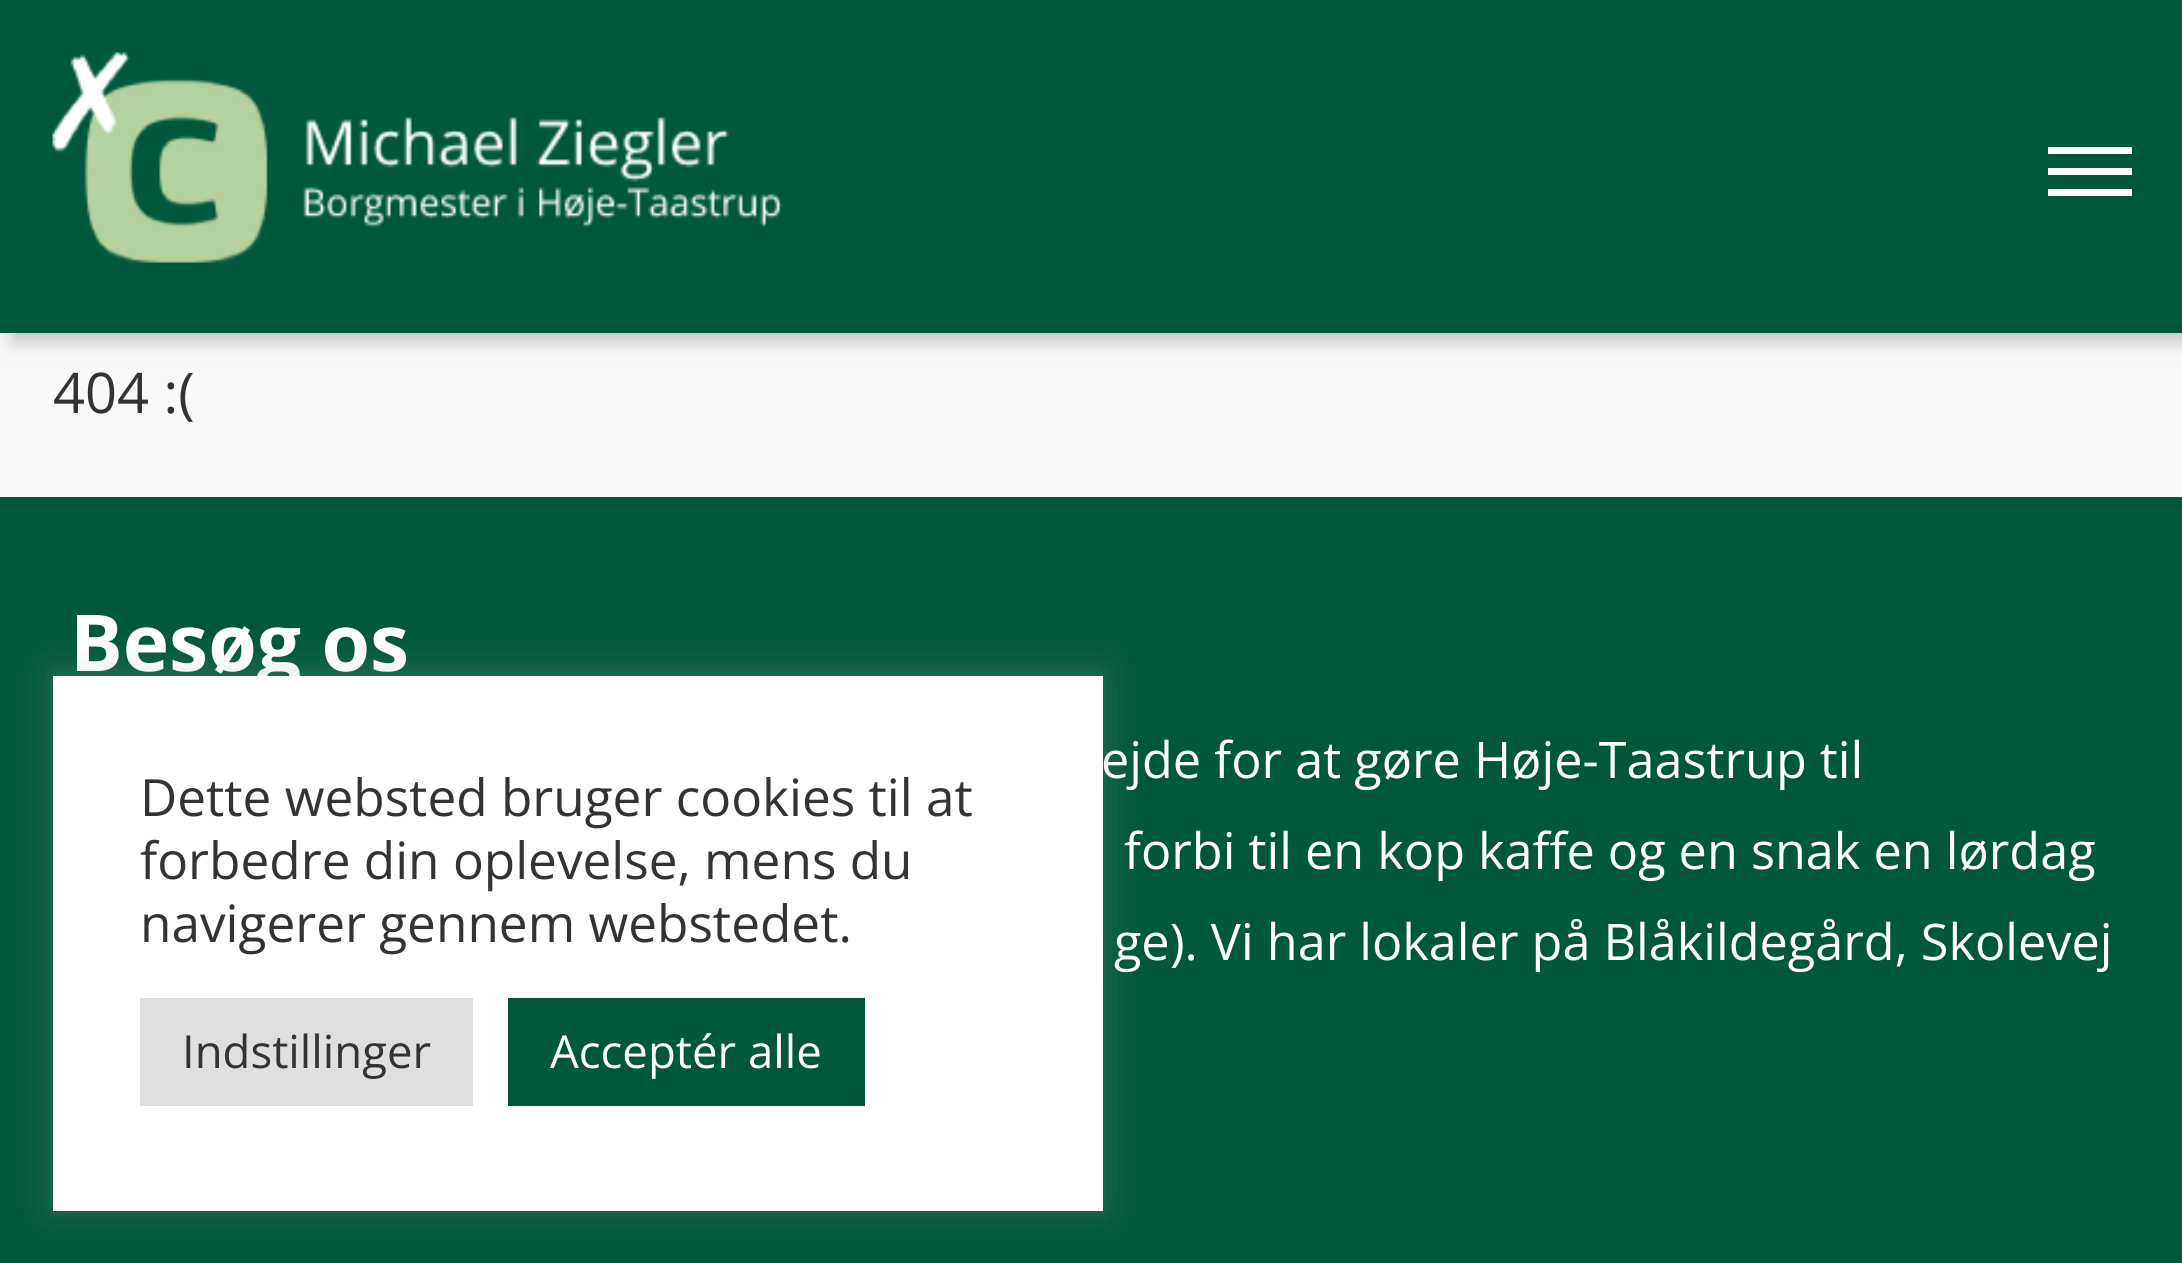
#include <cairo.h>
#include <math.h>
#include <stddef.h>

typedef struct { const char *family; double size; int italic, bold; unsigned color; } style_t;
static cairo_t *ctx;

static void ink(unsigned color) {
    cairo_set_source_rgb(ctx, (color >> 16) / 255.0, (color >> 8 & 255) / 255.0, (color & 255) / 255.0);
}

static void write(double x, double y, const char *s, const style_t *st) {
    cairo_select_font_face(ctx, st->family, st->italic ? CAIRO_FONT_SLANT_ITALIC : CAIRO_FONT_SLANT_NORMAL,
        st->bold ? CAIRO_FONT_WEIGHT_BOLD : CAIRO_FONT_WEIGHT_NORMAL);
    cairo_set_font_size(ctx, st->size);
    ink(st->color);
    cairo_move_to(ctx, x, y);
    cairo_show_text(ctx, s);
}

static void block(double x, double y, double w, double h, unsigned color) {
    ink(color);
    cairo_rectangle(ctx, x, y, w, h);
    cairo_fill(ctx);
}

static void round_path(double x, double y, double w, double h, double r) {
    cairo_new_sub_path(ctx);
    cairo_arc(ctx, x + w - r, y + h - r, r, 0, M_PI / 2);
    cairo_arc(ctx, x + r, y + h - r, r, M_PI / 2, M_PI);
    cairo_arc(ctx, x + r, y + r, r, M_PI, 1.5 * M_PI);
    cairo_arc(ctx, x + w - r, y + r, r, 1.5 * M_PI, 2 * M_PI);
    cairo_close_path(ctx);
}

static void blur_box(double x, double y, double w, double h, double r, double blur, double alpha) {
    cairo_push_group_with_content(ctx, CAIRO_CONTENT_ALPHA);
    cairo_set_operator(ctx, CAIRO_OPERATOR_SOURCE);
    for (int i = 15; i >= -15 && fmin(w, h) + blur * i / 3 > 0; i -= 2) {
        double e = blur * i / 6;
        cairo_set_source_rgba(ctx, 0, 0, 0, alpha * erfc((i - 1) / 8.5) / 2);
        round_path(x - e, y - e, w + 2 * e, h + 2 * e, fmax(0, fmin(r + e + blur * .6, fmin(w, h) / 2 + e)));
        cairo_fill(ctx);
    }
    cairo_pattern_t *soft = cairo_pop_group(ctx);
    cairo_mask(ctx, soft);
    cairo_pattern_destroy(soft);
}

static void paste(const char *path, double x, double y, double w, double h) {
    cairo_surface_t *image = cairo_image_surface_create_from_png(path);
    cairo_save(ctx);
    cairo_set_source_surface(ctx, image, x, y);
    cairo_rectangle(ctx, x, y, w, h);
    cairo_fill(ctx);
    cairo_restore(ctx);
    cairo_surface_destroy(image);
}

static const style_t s1 = {"Open Sans", 56, 0, 0, 0x333333};
static const style_t s2 = {"Open Sans", 78.5, 0, 1, 0xffffff};
static const style_t s3 = {"Open Sans", 50.4, 0, 0, 0xffffff};
static const style_t s4 = {"Open Sans", 51.3, 0, 0, 0x333333};
static const style_t s5 = {"Open Sans", 45.5, 0, 0, 0x333333};
static const style_t s6 = {"Open Sans", 45.5, 0, 0, 0xffffff};

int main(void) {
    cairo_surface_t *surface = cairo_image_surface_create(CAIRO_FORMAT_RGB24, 2182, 1263);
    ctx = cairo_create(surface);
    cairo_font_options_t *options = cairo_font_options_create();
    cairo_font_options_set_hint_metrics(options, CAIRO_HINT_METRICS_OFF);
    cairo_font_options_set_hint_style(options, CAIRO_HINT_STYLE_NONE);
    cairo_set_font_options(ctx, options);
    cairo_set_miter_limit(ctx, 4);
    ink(0xf9f9f9);
    cairo_paint(ctx);
    ink(0x000000);
    blur_box(11, 11, 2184, 332, 0, 9, 0.2);
    block(0, 0, 2182, 333, 0x00583c);
    paste("pic1.png", 52, 52, 731, 211);
    block(2048, 147, 84, 7, 0xffffff);
    block(2048, 168, 84, 7, 0xffffff);
    block(2048, 189, 84, 7, 0xffffff);
    write(53, 413, "404 :(", &s1);
    block(0, 497, 2182, 766, 0x00583c);
    write(70, 671, "Besøg os", &s2);
    write(1101, 778, "ejde for at gøre Høje-Taastrup til", &s3);
    write(1124, 869, "forbi til en kop kaffe og en snak en lørdag", &s3);
    write(1114, 960, "ge). Vi har lokaler på Blåkildegård, Skolevej", &s3);
    ink(0xacabab);
    blur_box(53, 672, 1050, 536, 0, 17.5, 0.3);
    block(53, 676, 1050, 535, 0xffffff);
    write(140, 816, "Dette websted bruger cookies til at", &s4);
    write(140, 879, "forbedre din oplevelse, mens du", &s4);
    write(140, 942, "navigerer gennem webstedet.", &s4);
    block(140, 998, 333, 108, 0xdedfe0);
    write(182, 1068, "Indstillinger", &s5);
    block(508, 998, 357, 108, 0x00583c);
    write(550, 1068, "Acceptér alle", &s6);
    cairo_surface_write_to_png(surface, "screenshot.png");
    cairo_font_options_destroy(options);
    cairo_destroy(ctx);
    cairo_surface_destroy(surface);
    return 0;
}
